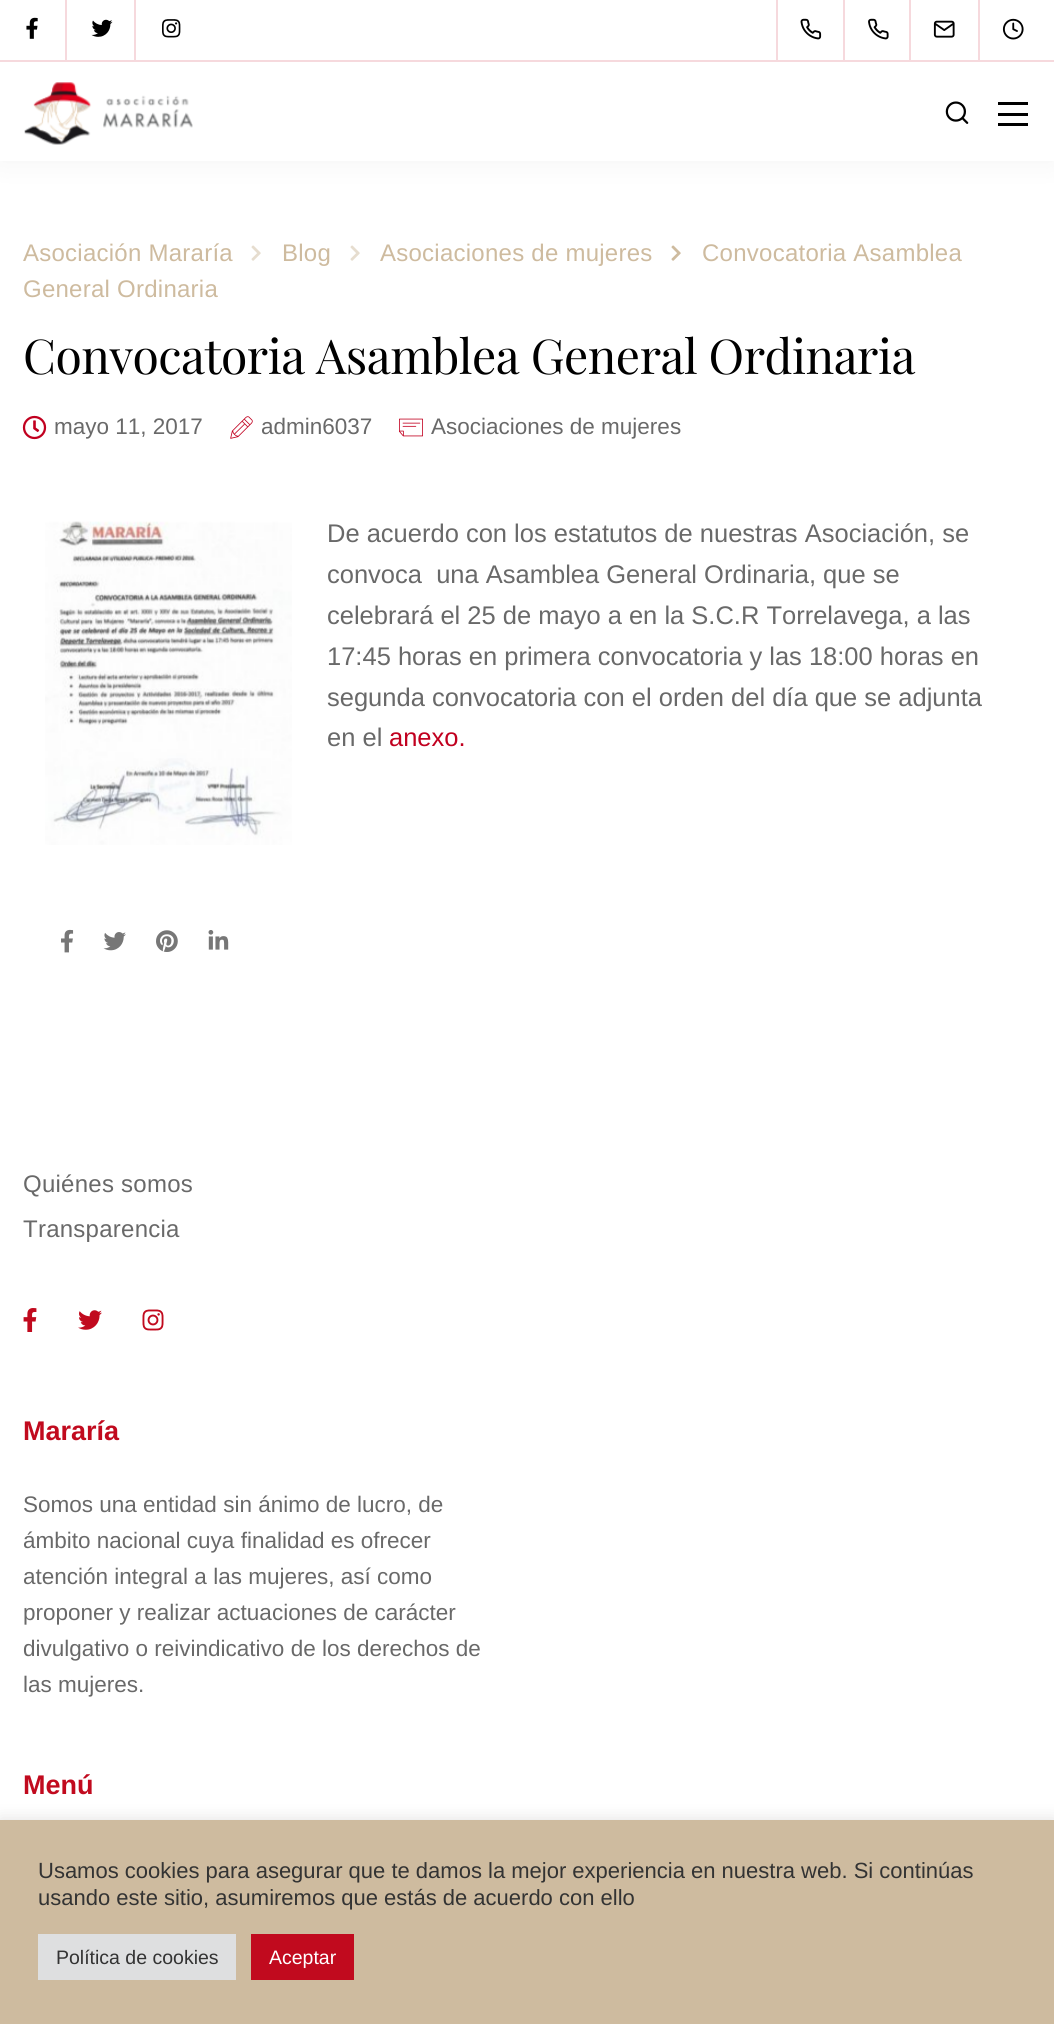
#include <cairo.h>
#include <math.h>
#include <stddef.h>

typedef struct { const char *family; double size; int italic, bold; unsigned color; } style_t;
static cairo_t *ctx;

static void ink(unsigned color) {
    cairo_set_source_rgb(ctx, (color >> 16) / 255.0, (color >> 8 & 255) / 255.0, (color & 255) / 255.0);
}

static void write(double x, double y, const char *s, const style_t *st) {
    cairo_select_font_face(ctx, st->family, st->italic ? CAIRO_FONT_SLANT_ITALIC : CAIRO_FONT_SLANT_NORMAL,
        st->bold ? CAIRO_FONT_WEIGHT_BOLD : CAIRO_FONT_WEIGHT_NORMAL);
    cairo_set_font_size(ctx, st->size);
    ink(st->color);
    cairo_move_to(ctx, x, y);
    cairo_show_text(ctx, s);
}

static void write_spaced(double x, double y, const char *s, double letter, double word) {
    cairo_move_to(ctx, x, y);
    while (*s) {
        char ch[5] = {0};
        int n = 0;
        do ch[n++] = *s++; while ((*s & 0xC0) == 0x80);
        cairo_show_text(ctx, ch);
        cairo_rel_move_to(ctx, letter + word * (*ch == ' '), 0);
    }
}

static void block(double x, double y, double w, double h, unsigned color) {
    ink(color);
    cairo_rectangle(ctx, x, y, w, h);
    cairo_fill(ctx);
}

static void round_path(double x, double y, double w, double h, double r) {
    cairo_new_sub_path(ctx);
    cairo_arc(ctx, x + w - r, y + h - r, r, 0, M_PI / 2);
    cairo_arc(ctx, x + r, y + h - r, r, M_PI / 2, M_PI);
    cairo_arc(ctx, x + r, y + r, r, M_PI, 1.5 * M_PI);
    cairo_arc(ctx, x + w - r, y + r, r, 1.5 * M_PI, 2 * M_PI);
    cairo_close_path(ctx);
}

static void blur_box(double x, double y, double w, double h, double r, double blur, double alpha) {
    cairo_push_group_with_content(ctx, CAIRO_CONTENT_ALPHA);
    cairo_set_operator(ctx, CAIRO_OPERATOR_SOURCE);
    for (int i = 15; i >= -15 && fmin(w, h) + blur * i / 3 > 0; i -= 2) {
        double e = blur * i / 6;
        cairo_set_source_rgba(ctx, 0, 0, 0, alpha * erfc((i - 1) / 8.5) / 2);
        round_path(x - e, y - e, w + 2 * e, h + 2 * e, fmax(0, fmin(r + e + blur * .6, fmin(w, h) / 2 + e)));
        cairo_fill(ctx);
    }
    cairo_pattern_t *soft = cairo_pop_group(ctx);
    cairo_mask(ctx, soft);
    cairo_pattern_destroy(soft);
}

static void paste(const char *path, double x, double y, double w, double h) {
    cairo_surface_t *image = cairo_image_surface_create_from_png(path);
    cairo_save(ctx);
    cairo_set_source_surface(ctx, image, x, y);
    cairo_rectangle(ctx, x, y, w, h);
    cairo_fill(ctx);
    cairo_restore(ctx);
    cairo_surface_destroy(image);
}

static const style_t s1 = {"Liberation Sans", 22.5, 0, 0, 0x696969};
static const style_t s2 = {"Liberation Sans", 25.5, 0, 0, 0x696969};
static const style_t s3 = {"Liberation Sans", 25.5, 0, 0, 0xc1001f};
static const style_t s4 = {"Liberation Sans", 27, 0, 1, 0xc10a1e};
static const style_t s5 = {"Liberation Sans", 22, 0, 0, 0x333333};
static const style_t s6 = {"Liberation Sans", 19.5, 0, 0, 0x333333};
static const style_t s7 = {"Liberation Sans", 19.5, 0, 0, 0xffffff};

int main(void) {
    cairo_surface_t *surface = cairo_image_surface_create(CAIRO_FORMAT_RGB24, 1054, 2024);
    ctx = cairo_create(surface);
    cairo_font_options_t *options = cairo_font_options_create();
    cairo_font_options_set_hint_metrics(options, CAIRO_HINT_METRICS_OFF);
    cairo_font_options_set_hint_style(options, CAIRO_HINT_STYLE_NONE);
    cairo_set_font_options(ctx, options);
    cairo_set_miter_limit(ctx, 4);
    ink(0xffffff);
    cairo_paint(ctx);
    ink(0x000000);
    blur_box(0, 0, 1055, 161, 0, 15, 0.05);
    block(0, 0, 1054, 60, 0xffffff);
    block(0, 60, 1054, 2, 0xf6d9dd);
    block(65, 0, 2, 60, 0xf6d9dd);
    paste("pic1.png", 26, 17, 12, 22);
    block(134, 0, 2, 60, 0xf6d9dd);
    paste("pic2.png", 91, 19, 22, 18);
    paste("pic3.png", 162, 19, 19, 19);
    block(776, 0, 2, 60, 0xf6d9dd);
    block(843, 0, 2, 60, 0xf6d9dd);
    paste("pic4.png", 800, 18, 22, 22);
    block(909, 0, 2, 60, 0xf6d9dd);
    paste("pic5.png", 868, 18, 21, 22);
    block(978, 0, 2, 60, 0xf6d9dd);
    paste("pic6.png", 933, 20, 22, 18);
    paste("pic7.png", 1002, 18, 22, 22);
    block(0, 62, 1054, 99, 0xffffff);
    paste("pic8.png", 24, 82, 169, 63);
    paste("pic9.png", 945, 101, 24, 23);
    block(998, 123, 30, 3, 0x000000);
    block(998, 102, 30, 3, 0x000000);
    block(998, 113, 30, 3, 0x000000);
    cairo_select_font_face(ctx, "Liberation Sans", CAIRO_FONT_SLANT_NORMAL, CAIRO_FONT_WEIGHT_NORMAL);
    cairo_set_font_size(ctx, 24);
    ink(0xcebb9f);
    write_spaced(23, 261, "Asociación Mararía", 0.25, 0);
    paste("pic10.png", 251, 245, 10, 16);
    write_spaced(282, 261, "Blog", 0.25, 0);
    paste("pic10.png", 350, 245, 10, 16);
    write_spaced(380, 261, "Asociaciones de mujeres", 0.25, 0);
    paste("pic11.png", 671, 245, 10, 16);
    write_spaced(702, 261, "Convocatoria Asamblea", 0.25, 0);
    write_spaced(23, 297, "General Ordinaria", 0.25, 0);
    cairo_select_font_face(ctx, "Playfair Display", CAIRO_FONT_SLANT_NORMAL, CAIRO_FONT_WEIGHT_NORMAL);
    cairo_set_font_size(ctx, 48);
    ink(0x000000);
    write_spaced(23, 374, "Convocatoria Asamblea General Ordinaria", -0.5, 0);
    paste("pic12.png", 22, 415, 25, 25);
    write(54, 434, "mayo 11, 2017", &s1);
    paste("pic13.png", 230, 416, 23, 23);
    write(261, 434, "admin6037", &s1);
    paste("pic14.png", 399, 418, 24, 19);
    write(431, 434, "Asociaciones de mujeres", &s1);
    paste("pic15.png", 45, 521, 247, 324);
    write(327, 542, "De acuerdo con los estatutos de nuestras Asociación, se", &s2);
    write(327, 583, "convoca  una Asamblea General Ordinaria, que se", &s2);
    write(327, 624, "celebrará el 25 de mayo a en la S.C.R Torrelavega, a las", &s2);
    write(327, 665, "17:45 horas en primera convocatoria y las 18:00 horas en", &s2);
    write(327, 706, "segunda convocatoria con el orden del día que se adjunta", &s2);
    write(327, 746, "en el", &s2);
    write(389, 746, "anexo.", &s3);
    paste("pic16.png", 61, 929, 13, 24);
    paste("pic17.png", 103, 932, 23, 19);
    paste("pic18.png", 156, 930, 22, 22);
    paste("pic19.png", 208, 930, 21, 20);
    cairo_set_font_size(ctx, 24);
    ink(0x696969);
    write_spaced(23, 1192, "Quiénes somos", 0.25, 0);
    write_spaced(23, 1237, "Transparencia", 0.25, 0);
    paste("pic20.png", 23, 1308, 14, 24);
    paste("pic21.png", 78, 1310, 24, 20);
    paste("pic22.png", 142, 1309, 22, 22);
    write(23, 1440, "Mararía", &s4);
    write(23, 1512, "Somos una entidad sin ánimo de lucro, de", &s1);
    write(23, 1548, "ámbito nacional cuya finalidad es ofrecer", &s1);
    write(23, 1584, "atención integral a las mujeres, así como", &s1);
    write(23, 1620, "proponer y realizar actuaciones de carácter", &s1);
    write(23, 1656, "divulgativo o reivindicativo de los derechos de", &s1);
    write(23, 1692, "las mujeres.", &s1);
    write(23, 1794, "Menú", &s4);
    ink(0xacabab);
    blur_box(0, 1818, 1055, 206, 0, 7.5, 0.3);
    block(0, 1820, 1054, 204, 0xcebb9f);
    write(38, 1878, "Usamos cookies para asegurar que te damos la mejor experiencia en nuestra web. Si continúas", &s5);
    write(38, 1905, "usando este sitio, asumiremos que estás de acuerdo con ello", &s5);
    block(38, 1934, 198, 46, 0xdedfe0);
    write(56, 1964, "Política de cookies", &s6);
    block(251, 1934, 103, 46, 0xc10a1e);
    write(269, 1964, "Aceptar", &s7);
    cairo_surface_write_to_png(surface, "screenshot.png");
    cairo_font_options_destroy(options);
    cairo_destroy(ctx);
    cairo_surface_destroy(surface);
    return 0;
}
